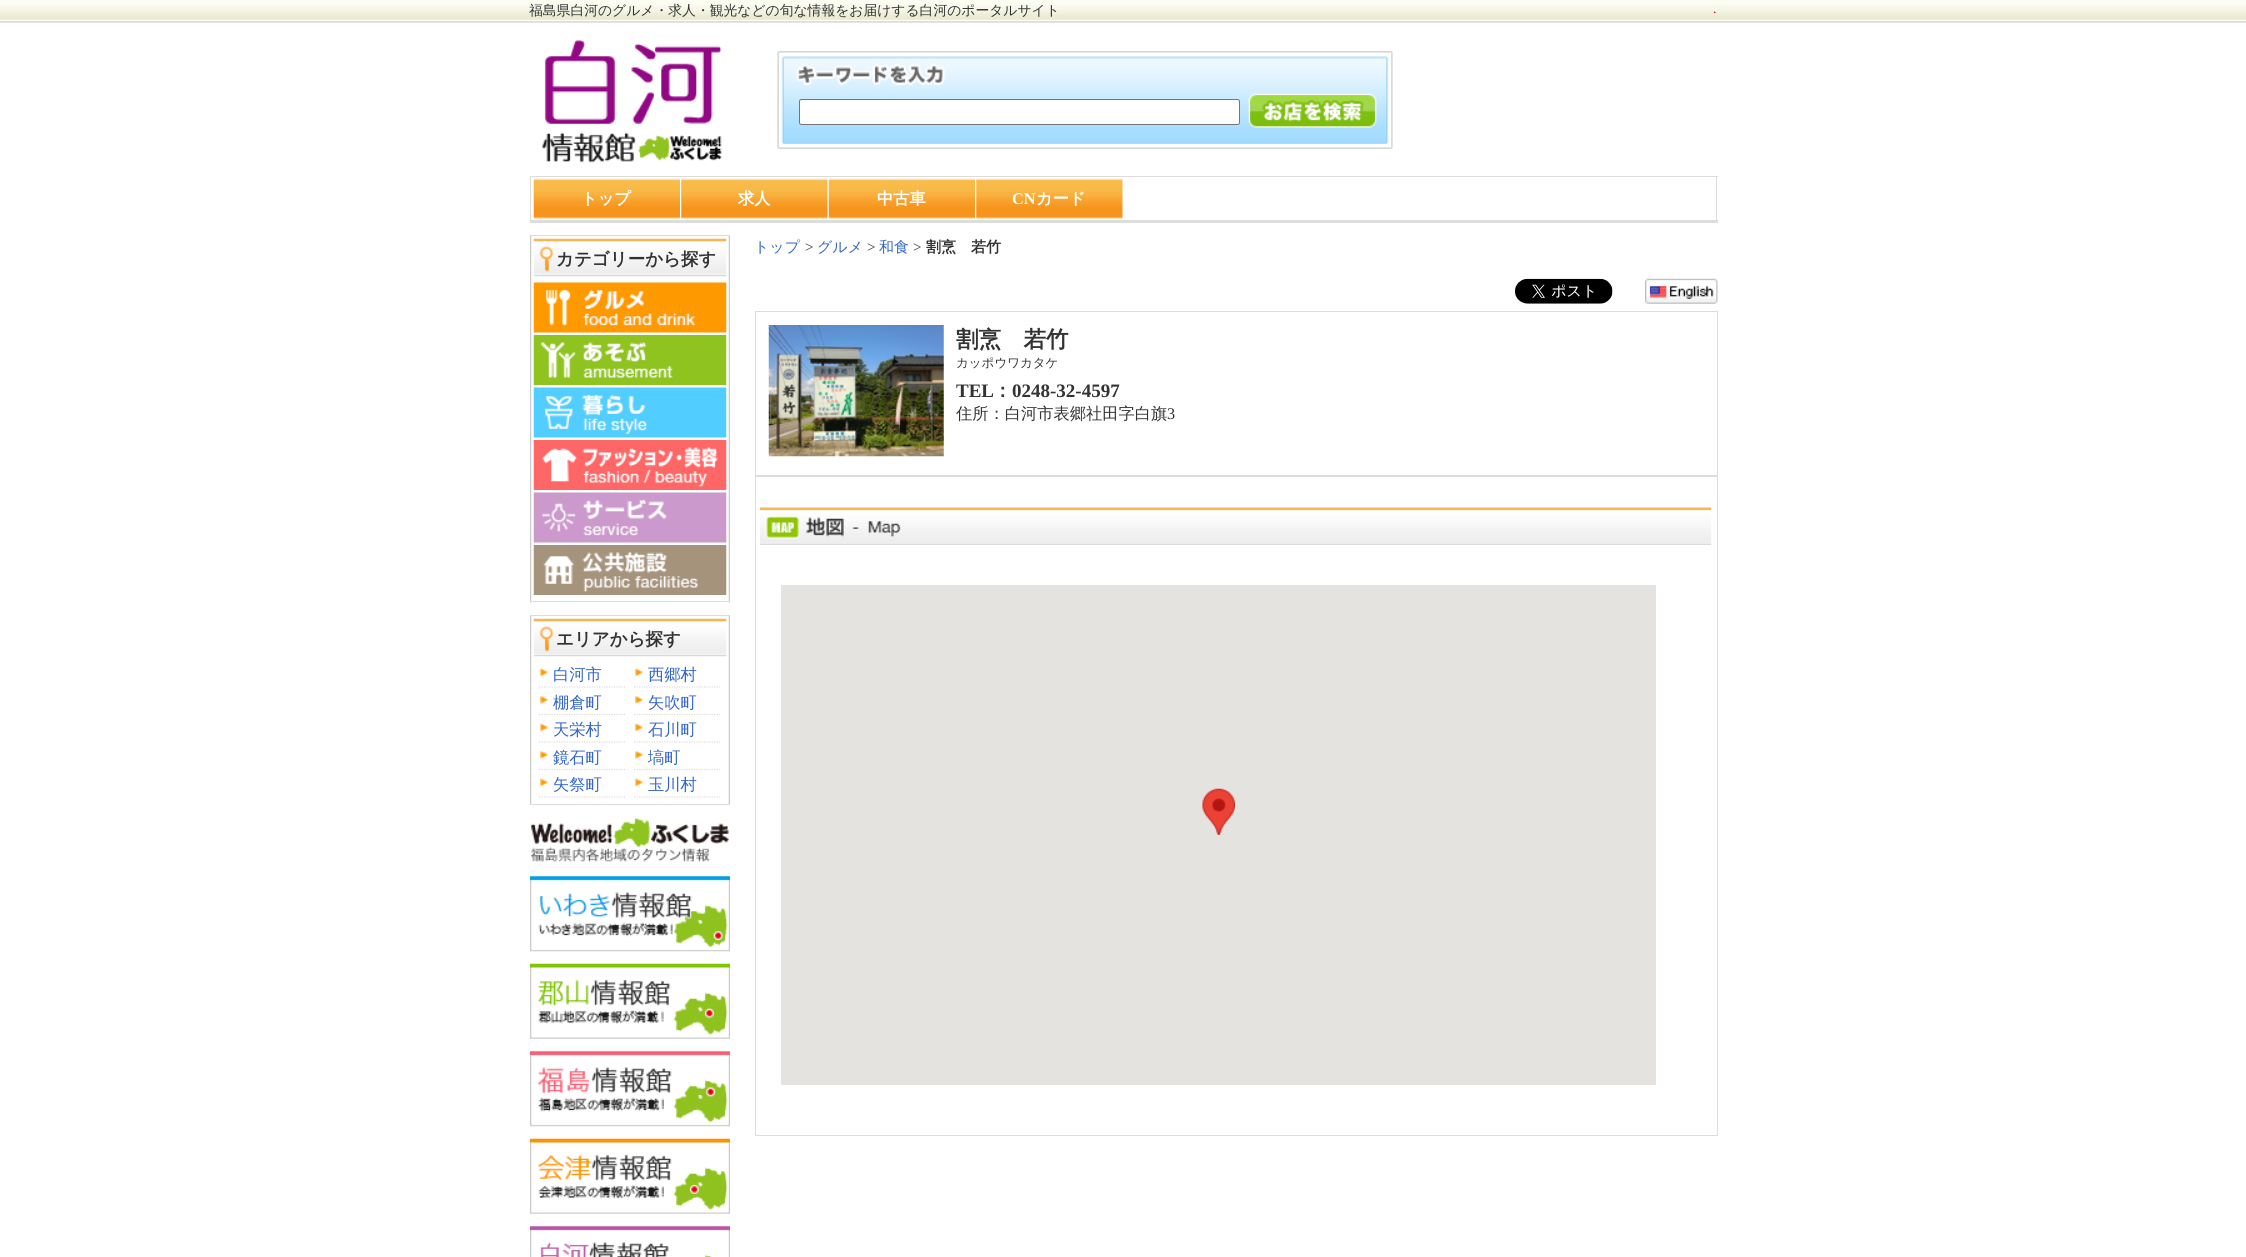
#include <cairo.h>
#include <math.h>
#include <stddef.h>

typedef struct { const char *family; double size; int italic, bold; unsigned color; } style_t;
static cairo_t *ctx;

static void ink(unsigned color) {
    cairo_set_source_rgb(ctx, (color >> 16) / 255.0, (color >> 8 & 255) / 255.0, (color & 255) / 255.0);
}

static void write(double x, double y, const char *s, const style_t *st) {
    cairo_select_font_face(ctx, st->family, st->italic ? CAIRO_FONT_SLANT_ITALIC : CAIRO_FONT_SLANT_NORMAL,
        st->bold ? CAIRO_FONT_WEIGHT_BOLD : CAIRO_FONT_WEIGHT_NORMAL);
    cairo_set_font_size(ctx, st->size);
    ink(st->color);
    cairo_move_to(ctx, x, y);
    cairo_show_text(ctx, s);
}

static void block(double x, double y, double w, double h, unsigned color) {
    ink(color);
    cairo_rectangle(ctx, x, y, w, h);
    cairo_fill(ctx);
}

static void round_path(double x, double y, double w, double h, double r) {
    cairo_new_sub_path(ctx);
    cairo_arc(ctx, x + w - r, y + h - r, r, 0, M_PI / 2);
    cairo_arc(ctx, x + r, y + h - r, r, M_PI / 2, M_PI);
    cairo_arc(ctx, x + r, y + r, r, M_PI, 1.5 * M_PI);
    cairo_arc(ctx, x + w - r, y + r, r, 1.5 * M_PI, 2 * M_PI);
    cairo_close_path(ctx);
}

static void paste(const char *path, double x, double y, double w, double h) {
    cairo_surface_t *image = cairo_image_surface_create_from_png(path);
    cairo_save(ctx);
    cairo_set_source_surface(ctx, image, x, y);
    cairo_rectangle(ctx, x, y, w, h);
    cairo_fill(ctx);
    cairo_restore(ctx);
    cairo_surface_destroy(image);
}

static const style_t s1 = {"WenQuanYi Zen Hei Medium", 13.8, 0, 0, 0x333333};
static const style_t s2 = {"Liberation Serif", 13.8, 0, 0, 0xcc0000};
static const style_t s3 = {"WenQuanYi Zen Hei", 16.25, 0, 1, 0xffffff};
static const style_t s4 = {"Liberation Serif", 16.25, 0, 1, 0xffffff};
static const style_t s5 = {"WenQuanYi Zen Hei", 17.5, 0, 1, 0x333333};
static const style_t s6 = {"WenQuanYi Zen Hei Medium", 16.25, 0, 0, 0x3366cc};
static const style_t s7 = {"WenQuanYi Zen Hei Medium", 15, 0, 0, 0x3366cc};
static const style_t s8 = {"Liberation Serif", 15, 0, 0, 0x333333};
static const style_t s9 = {"WenQuanYi Zen Hei", 15, 0, 1, 0x333333};
static const style_t s10 = {"WenQuanYi Zen Hei", 22.5, 0, 1, 0x333333};
static const style_t s11 = {"WenQuanYi Zen Hei Medium", 12.5, 0, 0, 0x333333};
static const style_t s12 = {"Liberation Serif", 19, 0, 1, 0x333333};
static const style_t s13 = {"WenQuanYi Zen Hei", 19, 0, 1, 0x333333};
static const style_t s14 = {"WenQuanYi Zen Hei Medium", 16.25, 0, 0, 0x333333};
static const style_t s15 = {"Liberation Serif", 16.25, 0, 0, 0x333333};

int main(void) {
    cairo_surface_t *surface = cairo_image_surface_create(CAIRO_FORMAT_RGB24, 2246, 1257);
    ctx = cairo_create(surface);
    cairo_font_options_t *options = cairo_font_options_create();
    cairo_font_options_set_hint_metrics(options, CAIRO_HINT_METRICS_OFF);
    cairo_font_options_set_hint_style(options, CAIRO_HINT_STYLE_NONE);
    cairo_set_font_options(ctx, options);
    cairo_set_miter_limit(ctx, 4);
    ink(0xffffff);
    cairo_paint(ctx);
    paste("pic1.png", 0, 0, 2246, 23);
    write(529, 15, "福島県白河のグルメ・求人・観光などの旬な情報をお届けする白河のポータルサイト", &s1);
    write(1713, 13, ".", &s2);
    paste("pic2.png", 542, 39, 180, 124);
    paste("pic3.png", 777, 51, 616, 98);
    ink(0xffffff);
    round_path(799.5, 99.5, 440, 25, 2);
    cairo_fill_preserve(ctx);
    ink(0x767676);
    cairo_set_line_width(ctx, 1);
    cairo_stroke(ctx);
    paste("pic4.png", 1248, 93, 129, 35);
    block(530, 176, 1188, 1, 0xdddddd);
    block(1716, 176, 1, 47, 0xdddddd);
    block(530, 220, 1188, 3, 0xdddddd);
    block(530, 176, 1, 47, 0xdddddd);
    paste("pic5.png", 533, 178, 147, 41);
    write(581, 204, "トップ", &s3);
    paste("pic6.png", 681, 178, 147, 41);
    write(738, 204, "求人", &s3);
    paste("pic5.png", 828, 178, 147, 41);
    write(877, 204, "中古車", &s3);
    paste("pic6.png", 976, 178, 147, 41);
    write(1012, 204, "CN", &s4);
    write(1036, 204, "カード", &s3);
    paste("pic7.png", 530, 236, 200, 367);
    block(530, 235, 200, 1, 0xdddddd);
    block(530, 601, 200, 1, 0xdddddd);
    paste("pic8.png", 533, 238, 194, 39);
    write(556, 265, "カテゴリーから探す", &s5);
    paste("pic9.png", 533, 282, 194, 51);
    paste("pic10.png", 533, 335, 194, 50);
    paste("pic11.png", 533, 387, 194, 51);
    paste("pic12.png", 533, 440, 194, 50);
    paste("pic13.png", 533, 492, 194, 51);
    paste("pic14.png", 533, 545, 194, 50);
    paste("pic15.png", 530, 616, 200, 188);
    block(530, 615, 200, 1, 0xdddddd);
    block(530, 804, 200, 1, 0xdddddd);
    paste("pic8.png", 533, 618, 194, 39);
    write(556, 645, "エリアから探す", &s5);
    paste("pic16.png", 540, 668, 9, 9);
    cairo_new_path(ctx);
    cairo_move_to(ctx, 539, 687);
    cairo_line_to(ctx, 625, 687);
    ink(0xdddddd);
    cairo_set_line_width(ctx, 1.2);
    cairo_set_dash(ctx, (double[]){1.25, 1.25}, 2, 0);
    cairo_stroke(ctx);
    write(553, 680, "白河市", &s6);
    paste("pic16.png", 635, 668, 9, 9);
    cairo_new_path(ctx);
    cairo_move_to(ctx, 634, 687);
    cairo_line_to(ctx, 720, 687);
    ink(0xdddddd);
    cairo_stroke(ctx);
    write(648, 680, "西郷村", &s6);
    paste("pic17.png", 540, 696, 9, 8);
    cairo_new_path(ctx);
    cairo_move_to(ctx, 539, 714.5);
    cairo_line_to(ctx, 625, 714.5);
    ink(0xdddddd);
    cairo_stroke(ctx);
    write(553, 708, "棚倉町", &s6);
    paste("pic17.png", 635, 696, 9, 8);
    cairo_new_path(ctx);
    cairo_move_to(ctx, 634, 714.5);
    cairo_line_to(ctx, 720, 714.5);
    ink(0xdddddd);
    cairo_stroke(ctx);
    write(648, 708, "矢吹町", &s6);
    paste("pic16.png", 540, 723, 9, 9);
    cairo_new_path(ctx);
    cairo_move_to(ctx, 539, 742);
    cairo_line_to(ctx, 625, 742);
    ink(0xdddddd);
    cairo_stroke(ctx);
    write(553, 735, "天栄村", &s6);
    paste("pic16.png", 635, 723, 9, 9);
    cairo_new_path(ctx);
    cairo_move_to(ctx, 634, 742);
    cairo_line_to(ctx, 720, 742);
    ink(0xdddddd);
    cairo_stroke(ctx);
    write(648, 735, "石川町", &s6);
    paste("pic17.png", 540, 751, 9, 8);
    cairo_new_path(ctx);
    cairo_move_to(ctx, 539, 769.5);
    cairo_line_to(ctx, 625, 769.5);
    ink(0xdddddd);
    cairo_stroke(ctx);
    write(553, 763, "鏡石町", &s6);
    paste("pic17.png", 635, 751, 9, 8);
    cairo_new_path(ctx);
    cairo_move_to(ctx, 634, 769.5);
    cairo_line_to(ctx, 720, 769.5);
    ink(0xdddddd);
    cairo_stroke(ctx);
    write(648, 763, "塙町", &s6);
    paste("pic18.png", 540, 778, 9, 9);
    cairo_new_path(ctx);
    cairo_move_to(ctx, 539, 797);
    cairo_line_to(ctx, 625, 797);
    ink(0xdddddd);
    cairo_stroke(ctx);
    write(553, 790, "矢祭町", &s6);
    paste("pic18.png", 635, 778, 9, 9);
    cairo_new_path(ctx);
    cairo_move_to(ctx, 634, 797);
    cairo_line_to(ctx, 720, 797);
    ink(0xdddddd);
    cairo_stroke(ctx);
    write(648, 790, "玉川村", &s6);
    paste("pic19.png", 530, 818, 199, 44);
    paste("pic20.png", 530, 876, 200, 76);
    paste("pic21.png", 530, 963, 200, 76);
    paste("pic22.png", 530, 1051, 200, 76);
    paste("pic23.png", 530, 1138, 200, 76);
    paste("pic24.png", 530, 1226, 200, 31);
    write(754, 252, "トップ", &s7);
    write(805, 252, ">", &s8);
    write(817, 252, "グルメ", &s7);
    write(867, 252, ">", &s8);
    write(879, 252, "和食", &s7);
    write(913, 252, ">", &s8);
    write(926, 252, "割烹　若竹", &s9);
    paste("pic25.png", 1515, 278, 98, 26);
    paste("pic26.png", 1645, 278, 73, 26);
    cairo_rectangle(ctx, 755.5, 311.5, 962, 164);
    ink(0xdddddd);
    cairo_set_line_width(ctx, 1);
    cairo_set_dash(ctx, NULL, 0, 0);
    cairo_stroke(ctx);
    paste("pic27.png", 768, 325, 176, 132);
    write(956, 347, "割烹　若竹", &s10);
    write(956, 367, "カッポウワカタケ", &s11);
    write(956, 397, "TEL", &s12);
    write(993, 397, "：", &s13);
    write(1012, 397, "0248-32-4597", &s12);
    write(956, 419, "住所：白河市表郷社田字白旗", &s14);
    write(1167, 419, "3", &s15);
    cairo_rectangle(ctx, 755.5, 476.5, 962, 659);
    ink(0xdddddd);
    cairo_stroke(ctx);
    paste("pic28.png", 760, 507, 952, 38);
    block(781, 585, 875, 500, 0xe5e3df);
    paste("pic29.png", 1202, 788, 33, 47);
    cairo_surface_write_to_png(surface, "screenshot.png");
    cairo_font_options_destroy(options);
    cairo_destroy(ctx);
    cairo_surface_destroy(surface);
    return 0;
}
